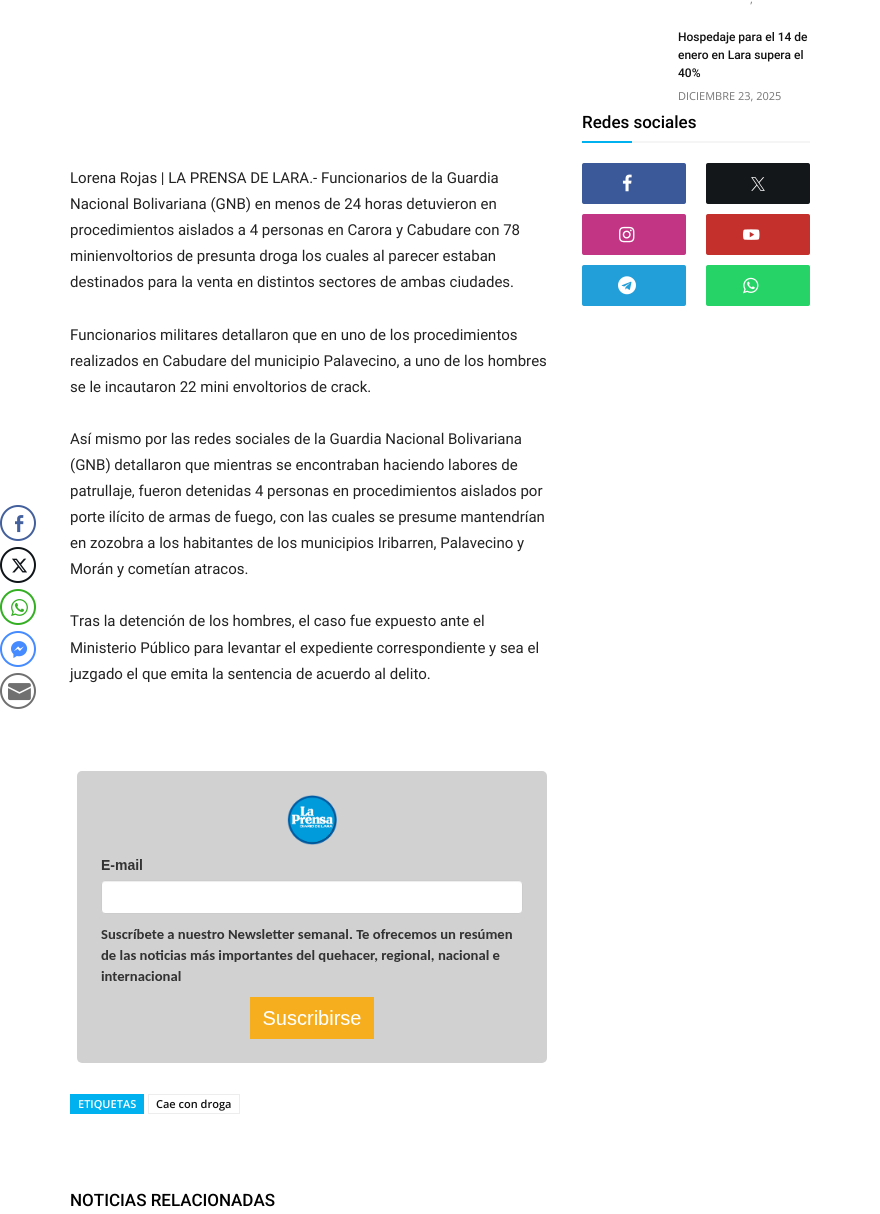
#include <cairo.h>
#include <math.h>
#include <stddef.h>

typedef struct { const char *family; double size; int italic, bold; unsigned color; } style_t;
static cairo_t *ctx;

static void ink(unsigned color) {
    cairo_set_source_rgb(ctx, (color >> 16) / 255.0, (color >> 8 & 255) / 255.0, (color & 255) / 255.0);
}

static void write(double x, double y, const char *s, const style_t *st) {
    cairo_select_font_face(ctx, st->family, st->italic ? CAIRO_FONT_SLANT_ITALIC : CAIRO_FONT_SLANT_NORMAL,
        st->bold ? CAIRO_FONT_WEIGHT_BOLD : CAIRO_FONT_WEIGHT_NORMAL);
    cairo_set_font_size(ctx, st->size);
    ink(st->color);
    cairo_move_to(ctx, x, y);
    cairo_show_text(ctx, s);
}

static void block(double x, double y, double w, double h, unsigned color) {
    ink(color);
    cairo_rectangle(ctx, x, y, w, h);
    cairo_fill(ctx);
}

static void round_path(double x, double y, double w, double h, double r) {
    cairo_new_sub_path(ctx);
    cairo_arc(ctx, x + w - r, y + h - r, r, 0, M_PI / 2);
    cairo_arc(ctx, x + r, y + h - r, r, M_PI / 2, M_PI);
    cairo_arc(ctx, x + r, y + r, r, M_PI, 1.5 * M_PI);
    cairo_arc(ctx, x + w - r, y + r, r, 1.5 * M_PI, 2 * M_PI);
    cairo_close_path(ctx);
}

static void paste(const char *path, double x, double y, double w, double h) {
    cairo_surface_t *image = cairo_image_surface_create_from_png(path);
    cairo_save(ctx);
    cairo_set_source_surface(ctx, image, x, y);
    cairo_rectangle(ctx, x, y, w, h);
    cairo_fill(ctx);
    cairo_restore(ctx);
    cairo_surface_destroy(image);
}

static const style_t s1 = {"Open Sans", 11, 0, 0, 0x767676};
static const style_t s2 = {"Roboto Medium", 12, 0, 0, 0x111111};
static const style_t s3 = {"Roboto Medium", 17, 0, 0, 0x000000};
static const style_t s4 = {"Roboto", 15, 0, 0, 0x222222};
static const style_t s5 = {"Open Sans SemiBold", 11, 0, 0, 0xffffff};
static const style_t s6 = {"Open Sans SemiBold", 11, 0, 0, 0x111111};

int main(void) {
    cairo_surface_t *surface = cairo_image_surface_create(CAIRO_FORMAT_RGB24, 880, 1214);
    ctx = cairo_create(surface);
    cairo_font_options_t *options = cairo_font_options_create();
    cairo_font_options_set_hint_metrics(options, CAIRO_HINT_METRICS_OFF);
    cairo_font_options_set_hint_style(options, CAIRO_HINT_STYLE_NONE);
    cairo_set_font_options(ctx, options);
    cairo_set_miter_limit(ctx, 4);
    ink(0xffffff);
    cairo_paint(ctx);
    cairo_arc(ctx, 18, 523, 17, 0, 2 * M_PI);
    ink(0x43609c);
    cairo_stroke(ctx);
    paste("pic1.png", 15, 515, 9, 18);
    cairo_arc(ctx, 18, 565, 17, 0, 2 * M_PI);
    ink(0x0f1419);
    cairo_stroke(ctx);
    paste("pic2.png", 12, 558, 15, 15);
    cairo_arc(ctx, 18, 607, 17, 0, 2 * M_PI);
    ink(0x34af23);
    cairo_stroke(ctx);
    paste("pic3.png", 11, 599, 17, 17);
    cairo_arc(ctx, 18, 649, 17, 0, 2 * M_PI);
    ink(0x468bff);
    cairo_stroke(ctx);
    paste("pic4.png", 11, 641, 17, 17);
    cairo_arc(ctx, 18, 691, 17, 0, 2 * M_PI);
    ink(0x717070);
    cairo_stroke(ctx);
    paste("pic5.png", 8, 683, 23, 18);
    write(750, 3, ",", &s1);
    write(678, 41, "Hospedaje para el 14 de", &s2);
    write(678, 59, "enero en Lara supera el", &s2);
    write(678, 77, "40%", &s2);
    write(678, 100, "DICIEMBRE 23, 2025", &s1);
    write(582, 128, "Redes sociales", &s3);
    block(582, 141, 50, 2, 0x00b1f0);
    block(632, 141, 178, 2, 0xf5f5f5);
    ink(0x3b5998);
    round_path(582, 163, 104, 41, 2);
    cairo_fill(ctx);
    paste("pic6.png", 622, 174, 10, 18);
    ink(0xc13584);
    round_path(582, 214, 104, 41, 2);
    cairo_fill(ctx);
    paste("pic7.png", 619, 226, 16, 17);
    ink(0x229ed9);
    round_path(582, 265, 104, 41, 2);
    cairo_fill(ctx);
    paste("pic8.png", 618, 276, 18, 19);
    ink(0x14171a);
    round_path(706, 163, 104, 41, 2);
    cairo_fill(ctx);
    paste("pic9.png", 751, 177, 14, 14);
    ink(0xc4302b);
    round_path(706, 214, 104, 41, 2);
    cairo_fill(ctx);
    paste("pic10.png", 743, 229, 17, 11);
    ink(0x25d366);
    round_path(706, 265, 104, 41, 2);
    cairo_fill(ctx);
    paste("pic11.png", 743, 277, 16, 17);
    write(70, 183, "Lorena Rojas | LA PRENSA DE LARA.- Funcionarios de la Guardia", &s4);
    write(70, 209, "Nacional Bolivariana (GNB) en menos de 24 horas detuvieron en", &s4);
    write(70, 235, "procedimientos aislados a 4 personas en Carora y Cabudare con 78", &s4);
    write(70, 261, "minienvoltorios de presunta droga los cuales al parecer estaban", &s4);
    write(70, 287, "destinados para la venta en distintos sectores de ambas ciudades.", &s4);
    write(70, 340, "Funcionarios militares detallaron que en uno de los procedimientos", &s4);
    write(70, 366, "realizados en Cabudare del municipio Palavecino, a uno de los hombres", &s4);
    write(70, 392, "se le incautaron 22 mini envoltorios de crack.", &s4);
    write(70, 444, "Así mismo por las redes sociales de la Guardia Nacional Bolivariana", &s4);
    write(70, 470, "(GNB) detallaron que mientras se encontraban haciendo labores de", &s4);
    write(70, 496, "patrullaje, fueron detenidas 4 personas en procedimientos aislados por", &s4);
    write(70, 522, "porte ilícito de armas de fuego, con las cuales se presume mantendrían", &s4);
    write(70, 548, "en zozobra a los habitantes de los municipios Iribarren, Palavecino y", &s4);
    write(70, 574, "Morán y cometían atracos.", &s4);
    write(70, 626, "Tras la detención de los hombres, el caso fue expuesto ante el", &s4);
    write(70, 653, "Ministerio Público para levantar el expediente correspondiente y sea el", &s4);
    write(70, 679, "juzgado el que emita la sentencia de acuerdo al delito.", &s4);
    paste("pic12.png", 77, 771, 470, 292);
    block(70, 1094, 74, 20, 0x00b1f0);
    write(78, 1108, "ETIQUETAS", &s5);
    cairo_rectangle(ctx, 148.5, 1094.5, 91, 19);
    ink(0xededed);
    cairo_set_line_width(ctx, 1);
    cairo_stroke(ctx);
    write(156, 1108, "Cae con droga", &s6);
    write(70, 1206, "NOTICIAS RELACIONADAS", &s3);
    cairo_surface_write_to_png(surface, "screenshot.png");
    cairo_font_options_destroy(options);
    cairo_destroy(ctx);
    cairo_surface_destroy(surface);
    return 0;
}
